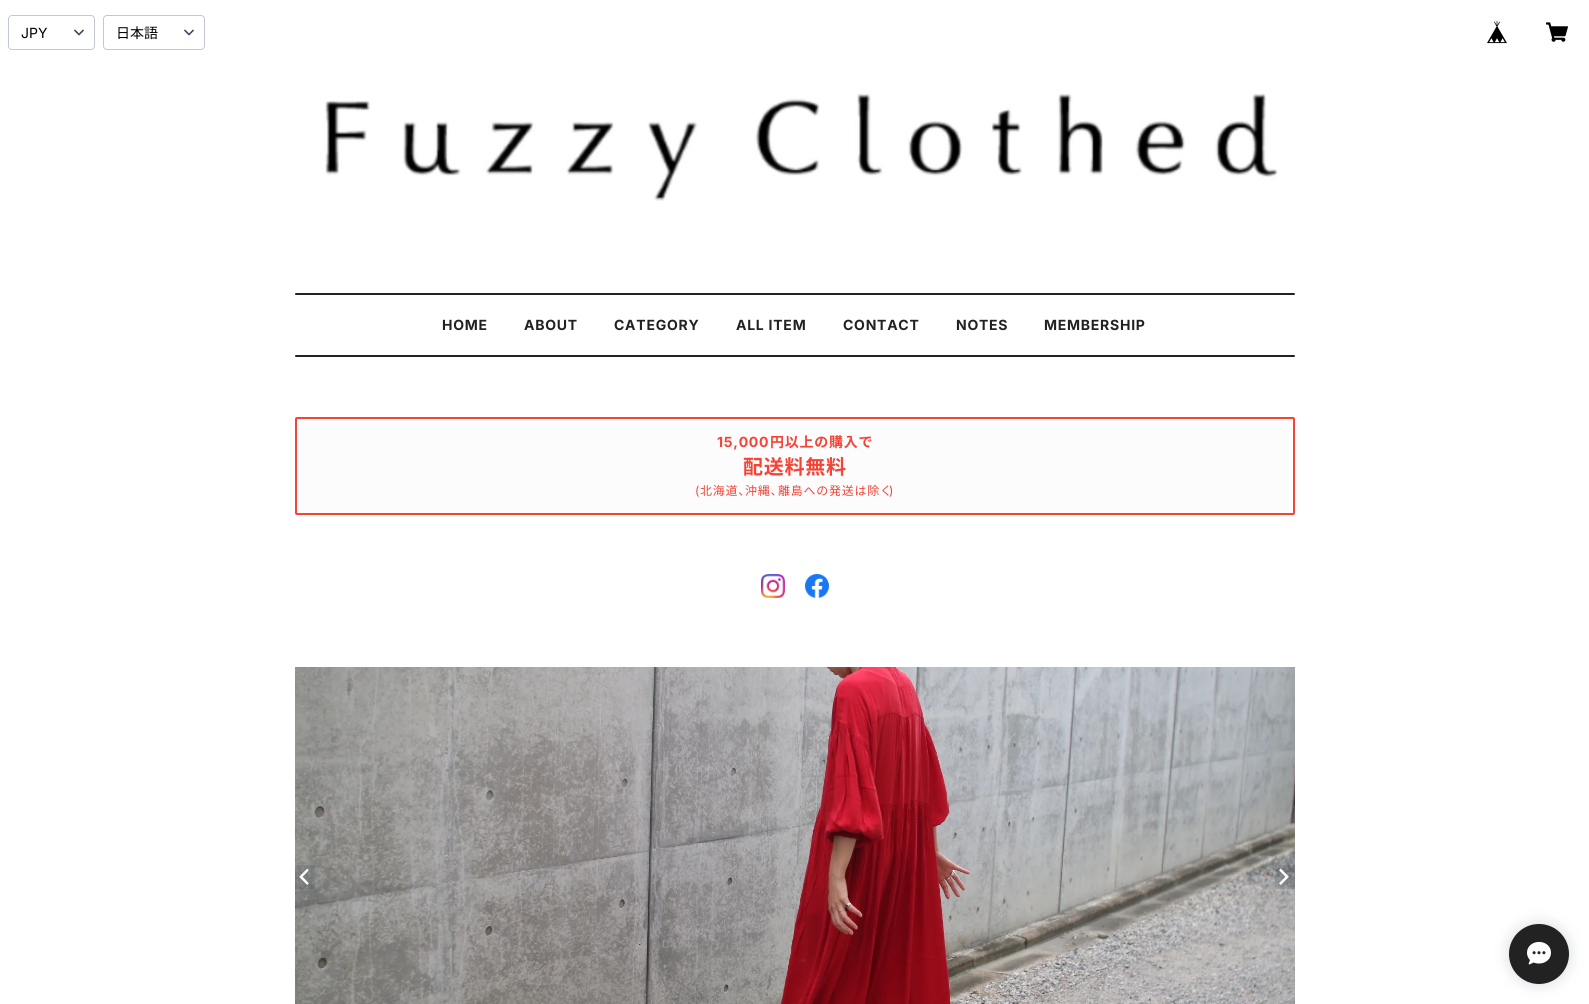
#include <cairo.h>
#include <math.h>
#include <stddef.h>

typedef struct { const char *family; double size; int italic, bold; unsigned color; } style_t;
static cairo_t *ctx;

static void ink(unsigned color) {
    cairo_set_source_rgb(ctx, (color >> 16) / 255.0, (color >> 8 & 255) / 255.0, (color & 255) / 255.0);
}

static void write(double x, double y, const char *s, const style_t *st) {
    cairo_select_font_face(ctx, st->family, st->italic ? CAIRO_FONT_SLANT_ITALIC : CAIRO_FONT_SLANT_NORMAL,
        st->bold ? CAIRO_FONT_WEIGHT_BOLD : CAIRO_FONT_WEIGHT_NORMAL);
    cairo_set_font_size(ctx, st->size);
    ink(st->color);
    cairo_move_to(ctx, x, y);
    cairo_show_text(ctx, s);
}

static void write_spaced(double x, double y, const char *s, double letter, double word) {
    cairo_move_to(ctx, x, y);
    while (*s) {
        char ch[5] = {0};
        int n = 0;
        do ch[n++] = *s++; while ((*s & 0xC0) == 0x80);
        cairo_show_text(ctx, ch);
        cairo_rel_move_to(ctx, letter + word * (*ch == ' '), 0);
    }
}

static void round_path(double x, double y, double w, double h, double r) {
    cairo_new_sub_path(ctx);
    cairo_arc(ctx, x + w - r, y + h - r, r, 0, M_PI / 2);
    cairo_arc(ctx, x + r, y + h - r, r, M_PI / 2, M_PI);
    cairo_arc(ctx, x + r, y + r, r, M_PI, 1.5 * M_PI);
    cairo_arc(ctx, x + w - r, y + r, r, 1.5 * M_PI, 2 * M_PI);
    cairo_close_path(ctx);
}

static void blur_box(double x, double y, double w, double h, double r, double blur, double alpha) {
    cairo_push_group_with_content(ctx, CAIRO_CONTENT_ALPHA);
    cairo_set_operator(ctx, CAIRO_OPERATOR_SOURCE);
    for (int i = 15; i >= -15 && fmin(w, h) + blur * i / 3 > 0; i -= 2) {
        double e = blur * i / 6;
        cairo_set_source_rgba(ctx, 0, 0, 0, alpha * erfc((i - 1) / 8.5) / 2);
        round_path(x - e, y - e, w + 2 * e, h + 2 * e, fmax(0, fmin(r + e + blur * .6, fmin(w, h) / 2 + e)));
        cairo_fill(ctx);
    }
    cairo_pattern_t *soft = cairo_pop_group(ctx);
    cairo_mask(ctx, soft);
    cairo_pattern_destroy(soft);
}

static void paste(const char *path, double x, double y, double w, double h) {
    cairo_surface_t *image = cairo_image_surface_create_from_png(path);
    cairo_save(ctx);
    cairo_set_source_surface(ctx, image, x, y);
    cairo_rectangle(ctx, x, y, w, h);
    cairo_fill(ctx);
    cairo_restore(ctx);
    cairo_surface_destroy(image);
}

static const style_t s1 = {"Inter", 14, 0, 0, 0x000000};
static const style_t s2 = {"Noto Sans JP", 14, 0, 0, 0x000000};

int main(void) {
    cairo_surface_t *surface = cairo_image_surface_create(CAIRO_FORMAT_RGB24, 1589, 1004);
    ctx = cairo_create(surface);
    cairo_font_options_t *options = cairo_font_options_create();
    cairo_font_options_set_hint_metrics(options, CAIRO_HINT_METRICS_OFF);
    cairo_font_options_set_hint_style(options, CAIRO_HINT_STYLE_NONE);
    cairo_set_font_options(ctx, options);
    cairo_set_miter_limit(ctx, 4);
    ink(0xffffff);
    cairo_paint(ctx);
    round_path(8.5, 15.5, 86, 34, 3.5);
    ink(0xc2c8d2);
    cairo_set_line_width(ctx, 1);
    cairo_stroke(ctx);
    write(21, 38, "JPY", &s1);
    paste("pic1.png", 74, 29, 10, 7);
    round_path(103.5, 15.5, 101, 34, 3.5);
    ink(0xc2c8d2);
    cairo_stroke(ctx);
    write(116, 38, "日本語", &s2);
    paste("pic1.png", 184, 29, 10, 7);
    paste("pic2.png", 1487, 21, 20, 23);
    paste("pic3.png", 1546, 22, 22, 20);
    paste("pic4.png", 325, 93, 953, 108);
    ink(0x222222);
    round_path(295, 293, 1000, 2, 1);
    cairo_fill(ctx);
    cairo_select_font_face(ctx, "Inter", CAIRO_FONT_SLANT_NORMAL, CAIRO_FONT_WEIGHT_BOLD);
    write_spaced(442, 330, "HOME", 0.75, 0);
    write_spaced(524, 330, "ABOUT", 0.75, 0);
    write_spaced(614, 330, "CATEGORY", 0.75, 0);
    write_spaced(736, 330, "ALL ITEM", 0.75, 0);
    write_spaced(843, 330, "CONTACT", 0.75, 0);
    write_spaced(956, 330, "NOTES", 0.75, 0);
    write_spaced(1044, 330, "MEMBERSHIP", 0.75, 0);
    round_path(295, 355, 1000, 2, 1);
    cairo_fill(ctx);
    ink(0xfcfcfd);
    round_path(296, 418, 998, 96, 1);
    cairo_fill_preserve(ctx);
    ink(0xf54336);
    cairo_set_line_width(ctx, 2);
    cairo_stroke(ctx);
    write_spaced(717, 447, "15,000", 0.75, 0);
    cairo_select_font_face(ctx, "Noto Sans JP", CAIRO_FONT_SLANT_NORMAL, CAIRO_FONT_WEIGHT_BOLD);
    write_spaced(770, 447, "円以上の購入で", 0.75, 0);
    cairo_set_font_size(ctx, 20);
    write_spaced(743, 474, "配送料無料", 0.75, 0);
    cairo_select_font_face(ctx, "Inter", CAIRO_FONT_SLANT_NORMAL, CAIRO_FONT_WEIGHT_NORMAL);
    cairo_set_font_size(ctx, 12);
    write_spaced(695, 495, "(", 0.75, 0);
    cairo_select_font_face(ctx, "Noto Sans JP", CAIRO_FONT_SLANT_NORMAL, CAIRO_FONT_WEIGHT_NORMAL);
    write_spaced(700, 495, "北海道、", 0.75, 0);
    write_spaced(745, 495, "沖縄、", 0.75, 0);
    write_spaced(778, 495, "離島への発送は除く", 0.75, 0);
    cairo_select_font_face(ctx, "Inter", CAIRO_FONT_SLANT_NORMAL, CAIRO_FONT_WEIGHT_NORMAL);
    write_spaced(889, 495, ")", 0.75, 0);
    paste("pic5.png", 761, 574, 24, 24);
    paste("pic6.png", 805, 574, 24, 24);
    paste("pic7.png", 295, 667, 1000, 337);
    cairo_set_source_rgba(ctx, 0.22, 0.263, 0.349, 0.2);
    cairo_rectangle(ctx, 295, 865, 20, 24);
    cairo_fill(ctx);
    paste("pic8.png", 299, 868, 10, 17);
    cairo_rectangle(ctx, 1275, 865, 20, 24);
    cairo_fill(ctx);
    paste("pic9.png", 1279, 868, 10, 17);
    ink(0x334258);
    blur_box(1509, 924, 60, 60, 30, 7.5, 0.2);
    ink(0x222222);
    cairo_arc(ctx, 1539, 954, 30, 0, 2 * M_PI);
    cairo_fill(ctx);
    paste("pic10.png", 1527, 941, 24, 24);
    cairo_surface_write_to_png(surface, "screenshot.png");
    cairo_font_options_destroy(options);
    cairo_destroy(ctx);
    cairo_surface_destroy(surface);
    return 0;
}
